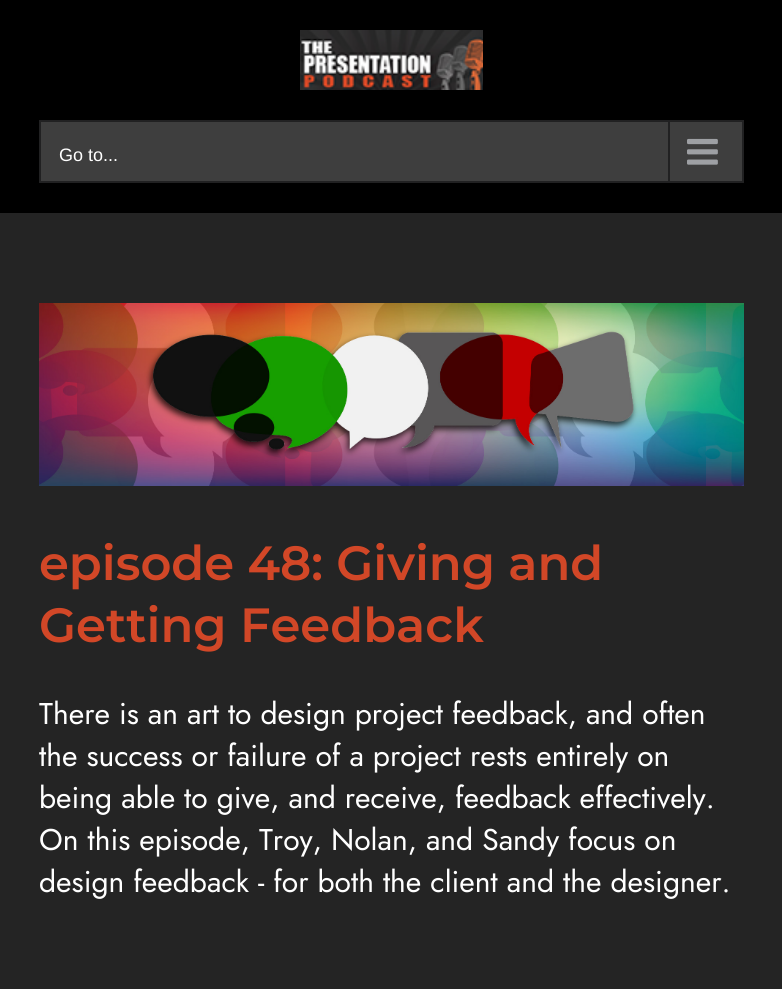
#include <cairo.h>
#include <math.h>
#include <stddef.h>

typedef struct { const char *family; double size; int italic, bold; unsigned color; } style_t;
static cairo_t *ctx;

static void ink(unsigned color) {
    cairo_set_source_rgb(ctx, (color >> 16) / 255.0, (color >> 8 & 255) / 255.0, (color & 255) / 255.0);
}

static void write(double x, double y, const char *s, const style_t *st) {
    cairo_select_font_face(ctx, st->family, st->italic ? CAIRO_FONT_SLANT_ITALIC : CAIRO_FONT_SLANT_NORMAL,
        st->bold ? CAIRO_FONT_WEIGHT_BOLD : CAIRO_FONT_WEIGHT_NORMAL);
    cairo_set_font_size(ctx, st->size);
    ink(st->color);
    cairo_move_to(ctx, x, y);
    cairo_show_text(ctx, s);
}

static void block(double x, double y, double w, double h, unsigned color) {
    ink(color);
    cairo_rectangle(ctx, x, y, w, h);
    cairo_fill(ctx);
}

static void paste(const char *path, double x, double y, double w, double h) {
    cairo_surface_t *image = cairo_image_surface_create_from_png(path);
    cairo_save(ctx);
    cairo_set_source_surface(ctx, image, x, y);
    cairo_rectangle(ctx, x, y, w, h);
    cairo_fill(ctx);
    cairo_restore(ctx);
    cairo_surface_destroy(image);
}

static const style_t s1 = {"Liberation Sans", 18, 0, 0, 0xffffff};
static const style_t s2 = {"Montserrat SemiBold", 48, 0, 0, 0xd24727};
static const style_t s3 = {"Jost", 30, 0, 0, 0xffffff};

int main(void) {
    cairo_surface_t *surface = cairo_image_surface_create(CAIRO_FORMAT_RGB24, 782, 989);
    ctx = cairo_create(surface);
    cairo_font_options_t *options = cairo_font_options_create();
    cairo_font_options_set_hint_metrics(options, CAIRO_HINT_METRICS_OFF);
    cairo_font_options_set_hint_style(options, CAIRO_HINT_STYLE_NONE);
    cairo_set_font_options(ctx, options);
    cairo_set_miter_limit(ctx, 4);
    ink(0x242424);
    cairo_paint(ctx);
    block(0, 0, 782, 213, 0x000000);
    paste("pic1.png", 300, 30, 183, 60);
    ink(0x3e3e3e);
    cairo_rectangle(ctx, 40, 121, 703, 61);
    cairo_fill_preserve(ctx);
    ink(0x212122);
    cairo_stroke(ctx);
    write(59, 161, "Go to...", &s1);
    block(668, 122, 2, 60, 0x212122);
    paste("pic2.png", 687, 138, 31, 27);
    paste("pic3.png", 39, 303, 705, 183);
    write(39, 580, "episode 48: Giving and", &s2);
    write(39, 642, "Getting Feedback", &s2);
    write(39, 724, "There is an art to design project feedback, and often", &s3);
    write(39, 766, "the success or failure of a project rests entirely on", &s3);
    write(39, 808, "being able to give, and receive, feedback effectively.", &s3);
    write(39, 850, "On this episode, Troy, Nolan, and Sandy focus on", &s3);
    write(39, 892, "design feedback - for both the client and the designer.", &s3);
    cairo_surface_write_to_png(surface, "screenshot.png");
    cairo_font_options_destroy(options);
    cairo_destroy(ctx);
    cairo_surface_destroy(surface);
    return 0;
}
